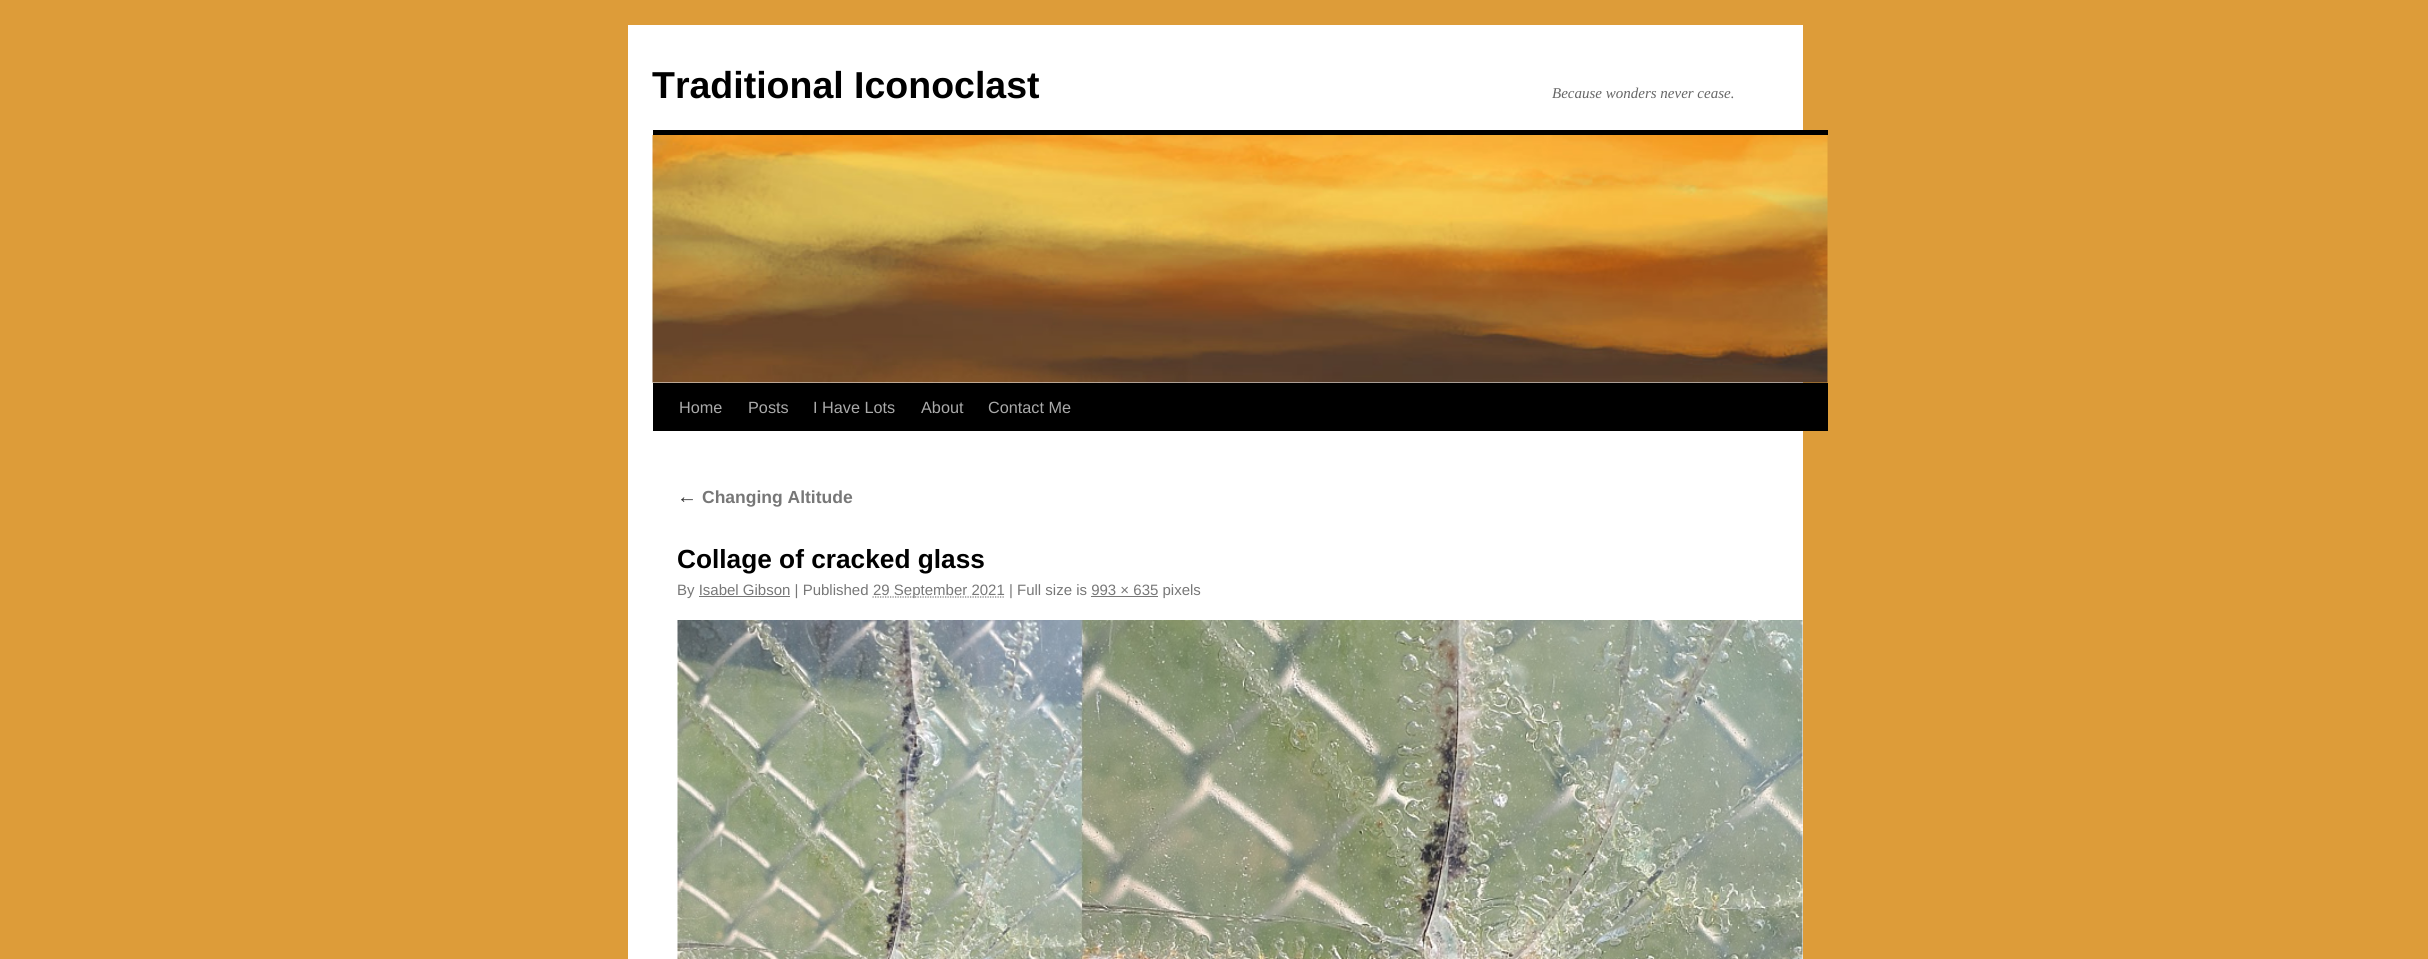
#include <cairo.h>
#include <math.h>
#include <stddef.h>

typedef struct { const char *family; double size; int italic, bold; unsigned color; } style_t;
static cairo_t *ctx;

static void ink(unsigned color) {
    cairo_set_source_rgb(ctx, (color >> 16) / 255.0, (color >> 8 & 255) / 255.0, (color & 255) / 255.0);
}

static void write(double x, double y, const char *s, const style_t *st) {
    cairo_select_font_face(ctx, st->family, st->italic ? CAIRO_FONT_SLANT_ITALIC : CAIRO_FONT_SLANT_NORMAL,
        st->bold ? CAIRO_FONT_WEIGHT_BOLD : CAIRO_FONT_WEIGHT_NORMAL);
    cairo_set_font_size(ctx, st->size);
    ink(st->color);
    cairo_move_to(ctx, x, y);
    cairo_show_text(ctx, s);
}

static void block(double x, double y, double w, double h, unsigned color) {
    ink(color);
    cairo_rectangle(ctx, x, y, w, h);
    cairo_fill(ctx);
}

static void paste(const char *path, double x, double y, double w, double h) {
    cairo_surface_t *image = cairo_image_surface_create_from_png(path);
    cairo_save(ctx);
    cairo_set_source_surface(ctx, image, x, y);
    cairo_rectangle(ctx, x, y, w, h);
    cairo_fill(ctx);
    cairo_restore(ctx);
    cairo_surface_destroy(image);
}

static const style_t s1 = {"Liberation Sans", 37.5, 0, 1, 0x000000};
static const style_t s2 = {"Liberation Serif", 15, 1, 0, 0x666666};
static const style_t s3 = {"Liberation Sans", 16.25, 0, 0, 0xaaaaaa};
static const style_t s4 = {"Liberation Serif", 20, 1, 0, 0x333333};
static const style_t s5 = {"Liberation Sans", 17.5, 0, 1, 0x777777};
static const style_t s6 = {"Liberation Sans", 26.25, 0, 1, 0x000000};
static const style_t s7 = {"Liberation Sans", 15, 0, 0, 0x777777};

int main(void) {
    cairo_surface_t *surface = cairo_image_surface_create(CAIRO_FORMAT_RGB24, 2428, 959);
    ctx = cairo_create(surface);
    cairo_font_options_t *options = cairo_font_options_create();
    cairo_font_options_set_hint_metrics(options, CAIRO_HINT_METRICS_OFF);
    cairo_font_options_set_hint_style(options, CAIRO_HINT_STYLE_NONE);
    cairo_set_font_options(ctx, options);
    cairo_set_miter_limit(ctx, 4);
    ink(0xdd9c39);
    cairo_paint(ctx);
    block(628, 25, 1175, 934, 0xffffff);
    write(652, 98, "Traditional Iconoclast", &s1);
    write(1552, 98, "Because wonders never cease.", &s2);
    block(653, 130, 1175, 5, 0x000000);
    block(653, 383, 1175, 48, 0x000000);
    paste("pic1.png", 652, 135, 1176, 248);
    write(679, 413, "Home", &s3);
    write(748, 413, "Posts", &s3);
    write(813, 413, "I Have Lots", &s3);
    write(921, 413, "About", &s3);
    write(988, 413, "Contact Me", &s3);
    write(677, 503, "←", &s4);
    write(702, 503, "Changing Altitude", &s5);
    write(677, 568, "Collage of cracked glass", &s6);
    write(677, 595, "By Isabel Gibson | Published", &s7);
    cairo_new_path(ctx);
    cairo_move_to(ctx, 872.5, 597);
    cairo_line_to(ctx, 1004.5, 597);
    cairo_set_line_width(ctx, 1.2);
    cairo_set_dash(ctx, (double[]){1.25, 1.25}, 2, 0);
    cairo_stroke(ctx);
    write(873, 595, "29 September 2021 | Full size is 993 × 635 pixels", &s7);
    block(699, 596, 91, 1, 0x777777);
    block(1091, 596, 67, 1, 0x777777);
    paste("pic2.png", 677, 620, 1126, 339);
    cairo_surface_write_to_png(surface, "screenshot.png");
    cairo_font_options_destroy(options);
    cairo_destroy(ctx);
    cairo_surface_destroy(surface);
    return 0;
}
